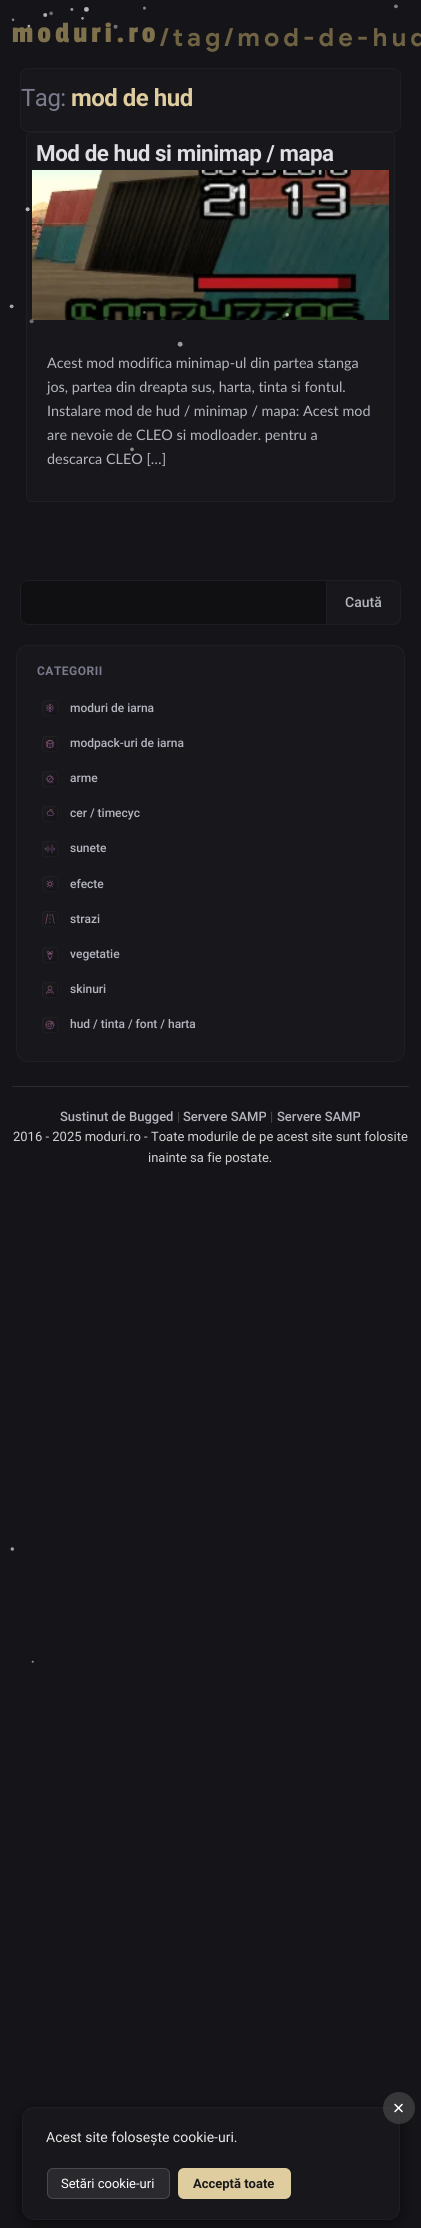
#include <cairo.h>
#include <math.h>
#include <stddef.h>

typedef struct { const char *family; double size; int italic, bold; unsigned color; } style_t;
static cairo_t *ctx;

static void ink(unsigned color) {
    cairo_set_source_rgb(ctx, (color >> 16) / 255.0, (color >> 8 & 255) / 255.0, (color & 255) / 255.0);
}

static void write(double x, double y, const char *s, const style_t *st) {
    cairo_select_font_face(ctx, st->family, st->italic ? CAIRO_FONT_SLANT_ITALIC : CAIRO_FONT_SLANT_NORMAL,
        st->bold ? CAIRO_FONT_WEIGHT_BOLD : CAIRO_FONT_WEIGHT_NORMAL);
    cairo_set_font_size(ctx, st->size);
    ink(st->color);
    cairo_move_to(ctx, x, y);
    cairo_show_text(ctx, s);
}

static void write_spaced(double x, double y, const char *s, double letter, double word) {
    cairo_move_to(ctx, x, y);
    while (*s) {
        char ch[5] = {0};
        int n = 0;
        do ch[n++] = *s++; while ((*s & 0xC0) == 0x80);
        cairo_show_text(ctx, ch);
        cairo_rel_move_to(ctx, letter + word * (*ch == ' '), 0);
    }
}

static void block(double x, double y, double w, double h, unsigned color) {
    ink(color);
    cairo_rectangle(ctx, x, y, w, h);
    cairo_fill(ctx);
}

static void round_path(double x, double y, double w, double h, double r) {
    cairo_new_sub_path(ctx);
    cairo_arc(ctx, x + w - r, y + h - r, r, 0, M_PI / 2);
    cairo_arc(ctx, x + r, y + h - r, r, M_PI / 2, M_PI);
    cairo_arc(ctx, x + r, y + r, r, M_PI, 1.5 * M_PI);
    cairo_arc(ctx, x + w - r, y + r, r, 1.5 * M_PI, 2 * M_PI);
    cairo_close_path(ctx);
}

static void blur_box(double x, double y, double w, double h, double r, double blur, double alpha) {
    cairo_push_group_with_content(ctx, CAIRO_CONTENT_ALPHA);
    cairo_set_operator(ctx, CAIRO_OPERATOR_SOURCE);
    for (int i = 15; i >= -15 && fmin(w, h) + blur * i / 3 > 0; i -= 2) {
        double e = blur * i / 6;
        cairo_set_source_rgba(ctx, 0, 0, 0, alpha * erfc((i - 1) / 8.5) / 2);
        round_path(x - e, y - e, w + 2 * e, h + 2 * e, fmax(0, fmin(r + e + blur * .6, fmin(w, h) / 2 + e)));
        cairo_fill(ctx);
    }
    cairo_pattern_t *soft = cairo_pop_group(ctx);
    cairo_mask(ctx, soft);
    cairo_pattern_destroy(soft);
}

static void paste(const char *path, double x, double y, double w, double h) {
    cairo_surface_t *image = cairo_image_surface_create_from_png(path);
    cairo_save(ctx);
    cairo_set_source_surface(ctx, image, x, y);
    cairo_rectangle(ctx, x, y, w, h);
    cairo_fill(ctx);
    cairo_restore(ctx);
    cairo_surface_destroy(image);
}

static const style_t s1 = {"Lato", 14.4, 0, 0, 0xb5b5c0};
static const style_t s2 = {"Roboto Medium", 14, 0, 0, 0xb5b5c0};
static const style_t s3 = {"Roboto Medium", 12, 0, 0, 0xb5b5c0};
static const style_t s4 = {"Roboto Medium", 13, 0, 0, 0xb5b5c0};
static const style_t s5 = {"Roboto", 13, 0, 0, 0x4a4a4a};
static const style_t s6 = {"Roboto", 13, 0, 0, 0xd1d1d1};
static const style_t s7 = {"Roboto", 14, 0, 0, 0xe8e8e8};
static const style_t s8 = {"Roboto", 13, 0, 0, 0xffffff};
static const style_t s9 = {"Roboto", 13, 0, 1, 0x1a1a1a};

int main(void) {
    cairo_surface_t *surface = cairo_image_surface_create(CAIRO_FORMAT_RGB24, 421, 2228);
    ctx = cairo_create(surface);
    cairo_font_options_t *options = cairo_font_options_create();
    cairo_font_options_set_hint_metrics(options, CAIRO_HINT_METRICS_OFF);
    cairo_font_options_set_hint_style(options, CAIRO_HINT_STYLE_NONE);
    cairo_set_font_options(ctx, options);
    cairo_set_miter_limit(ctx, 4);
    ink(0x151519);
    cairo_paint(ctx);
    cairo_select_font_face(ctx, "Passion One", CAIRO_FONT_SLANT_NORMAL, CAIRO_FONT_WEIGHT_NORMAL);
    cairo_set_font_size(ctx, 30);
    ink(0x80714d);
    write_spaced(12, 42, "moduri.ro", 4, 0);
    cairo_select_font_face(ctx, "Google Sans", CAIRO_FONT_SLANT_NORMAL, CAIRO_FONT_WEIGHT_BOLD);
    cairo_set_font_size(ctx, 25);
    ink(0x706343);
    write_spaced(160, 46, "/tag/mod-de-hud", 4, 0);
    ink(0x17171c);
    round_path(20.5, 68.5, 380, 63, 7.5);
    cairo_fill_preserve(ctx);
    ink(0x1e1e24);
    cairo_set_line_width(ctx, 1);
    cairo_stroke(ctx);
    cairo_select_font_face(ctx, "Roboto", CAIRO_FONT_SLANT_NORMAL, CAIRO_FONT_WEIGHT_NORMAL);
    cairo_set_font_size(ctx, 24);
    ink(0x7b7b8e);
    write_spaced(21, 106, "Tag:", -0.5, 0);
    cairo_select_font_face(ctx, "Roboto", CAIRO_FONT_SLANT_NORMAL, CAIRO_FONT_WEIGHT_BOLD);
    ink(0xdfcd9f);
    write_spaced(71, 106, "mod de hud", -0.5, 0);
    ink(0x17171c);
    round_path(26.5, 132.5, 368, 369, 4.5);
    cairo_fill_preserve(ctx);
    ink(0x1e1e24);
    cairo_stroke(ctx);
    cairo_set_font_size(ctx, 22.4);
    ink(0xdedee3);
    write_spaced(36, 161, "Mod de hud si minimap / mapa", -0.45, 0);
    paste("pic2.png", 32, 170, 357, 150);
    write(47, 368, "Acest mod modifica minimap-ul din partea stanga", &s1);
    write(47, 392, "jos, partea din dreapta sus, harta, tinta si fontul.", &s1);
    write(47, 416, "Instalare mod de hud / minimap / mapa: Acest mod", &s1);
    write(47, 440, "are nevoie de CLEO si modloader. pentru a", &s1);
    write(47, 464, "descarca CLEO […]", &s1);
    ink(0x101013);
    cairo_new_path(ctx);
    cairo_move_to(ctx, 28, 580);
    cairo_line_to(ctx, 326, 580);
    cairo_line_to(ctx, 326, 625);
    cairo_line_to(ctx, 28, 625);
    cairo_curve_to(ctx, 23.5, 625, 20, 621.5, 20, 617);
    cairo_line_to(ctx, 20, 588);
    cairo_curve_to(ctx, 20, 583.5, 23.5, 580, 28, 580);
    cairo_close_path(ctx);
    cairo_fill(ctx);
    ink(0x1e1e24);
    cairo_set_fill_rule(ctx, CAIRO_FILL_RULE_EVEN_ODD);
    cairo_new_path(ctx);
    cairo_move_to(ctx, 28, 580);
    cairo_line_to(ctx, 326, 580);
    cairo_line_to(ctx, 326, 625);
    cairo_line_to(ctx, 28, 625);
    cairo_curve_to(ctx, 24, 625, 20, 621, 20, 617);
    cairo_line_to(ctx, 20, 588);
    cairo_curve_to(ctx, 20, 584, 24, 580, 28, 580);
    cairo_close_path(ctx);
    cairo_move_to(ctx, 28, 581);
    cairo_line_to(ctx, 326, 581);
    cairo_line_to(ctx, 326, 624);
    cairo_line_to(ctx, 28, 624);
    cairo_curve_to(ctx, 24, 624, 21, 621, 21, 617);
    cairo_line_to(ctx, 21, 588);
    cairo_curve_to(ctx, 21, 584, 24, 581, 28, 581);
    cairo_close_path(ctx);
    cairo_fill(ctx);
    ink(0x17171c);
    cairo_new_path(ctx);
    cairo_move_to(ctx, 326.5, 580.5);
    cairo_line_to(ctx, 393, 580.5);
    cairo_curve_to(ctx, 397, 580.5, 400.5, 584, 400.5, 588);
    cairo_line_to(ctx, 400.5, 617);
    cairo_curve_to(ctx, 400.5, 621, 397, 624.5, 393, 624.5);
    cairo_line_to(ctx, 326.5, 624.5);
    cairo_close_path(ctx);
    cairo_fill_preserve(ctx);
    ink(0x1e1e24);
    cairo_stroke(ctx);
    write(345, 607, "Caută", &s2);
    ink(0x17171c);
    round_path(16.5, 645.5, 388, 416, 11.5);
    cairo_fill_preserve(ctx);
    ink(0x1e1e24);
    cairo_stroke(ctx);
    cairo_select_font_face(ctx, "Roboto", CAIRO_FONT_SLANT_NORMAL, CAIRO_FONT_WEIGHT_BOLD);
    cairo_set_font_size(ctx, 12);
    ink(0x7b7b8e);
    write_spaced(37, 675, "CATEGORII", 0.5, 0);
    paste("pic3.png", 42, 700, 16, 16);
    write(70, 712, "moduri de iarna", &s3);
    paste("pic4.png", 42, 736, 16, 16);
    write(70, 747, "modpack-uri de iarna", &s3);
    paste("pic5.png", 42, 771, 16, 16);
    write(70, 782, "arme", &s3);
    paste("pic6.png", 42, 806, 16, 16);
    write(70, 817, "cer / timecyc", &s3);
    paste("pic7.png", 42, 841, 16, 16);
    write(70, 852, "sunete", &s3);
    paste("pic8.png", 42, 876, 16, 16);
    write(70, 888, "efecte", &s3);
    paste("pic9.png", 42, 911, 16, 16);
    write(70, 923, "strazi", &s3);
    paste("pic10.png", 42, 947, 16, 16);
    write(70, 958, "vegetatie", &s3);
    paste("pic11.png", 42, 982, 16, 16);
    write(70, 993, "skinuri", &s3);
    paste("pic12.png", 42, 1017, 16, 16);
    write(70, 1028, "hud / tinta / font / harta", &s3);
    block(12, 1086, 397, 1, 0x2c2c30);
    write(60, 1121, "Sustinut de Bugged", &s4);
    write(177, 1121, "|", &s5);
    write(183, 1121, "Servere SAMP", &s4);
    write(270, 1121, "|", &s5);
    write(277, 1121, "Servere SAMP", &s4);
    write(13, 1141, "2016 - 2025 moduri.ro - Toate modurile de pe acest site sunt folosite", &s6);
    write(148, 1162, "inainte sa fie postate.", &s6);
    paste("pic1.png", 9, 4, 389, 1659);
    ink(0x000000);
    blur_box(22, 2111, 378, 113, 12, 7.5, 0.5);
    ink(0x17171c);
    round_path(22.5, 2107.5, 377, 112, 11.5);
    cairo_fill_preserve(ctx);
    ink(0x1e1e24);
    cairo_stroke(ctx);
    cairo_set_source_rgba(ctx, 0.333, 0.333, 0.333, 0.53);
    cairo_arc(ctx, 399, 2108, 16, 0, 2 * M_PI);
    cairo_fill(ctx);
    paste("pic13.png", 394, 2103, 9, 10);
    write(46, 2142, "Acest site folosește cookie-uri.", &s7);
    ink(0x2a2a2e);
    round_path(47, 2168, 123, 31, 6);
    cairo_fill(ctx);
    round_path(47.5, 2168.5, 122, 30, 5.5);
    cairo_set_source_rgba(ctx, 1, 1, 1, 0.15);
    cairo_stroke(ctx);
    write(61, 2188, "Setări cookie-uri", &s8);
    ink(0xdfcd9f);
    round_path(178, 2168, 113, 31, 6);
    cairo_fill(ctx);
    write(193, 2188, "Acceptă toate", &s9);
    cairo_surface_write_to_png(surface, "screenshot.png");
    cairo_font_options_destroy(options);
    cairo_destroy(ctx);
    cairo_surface_destroy(surface);
    return 0;
}
